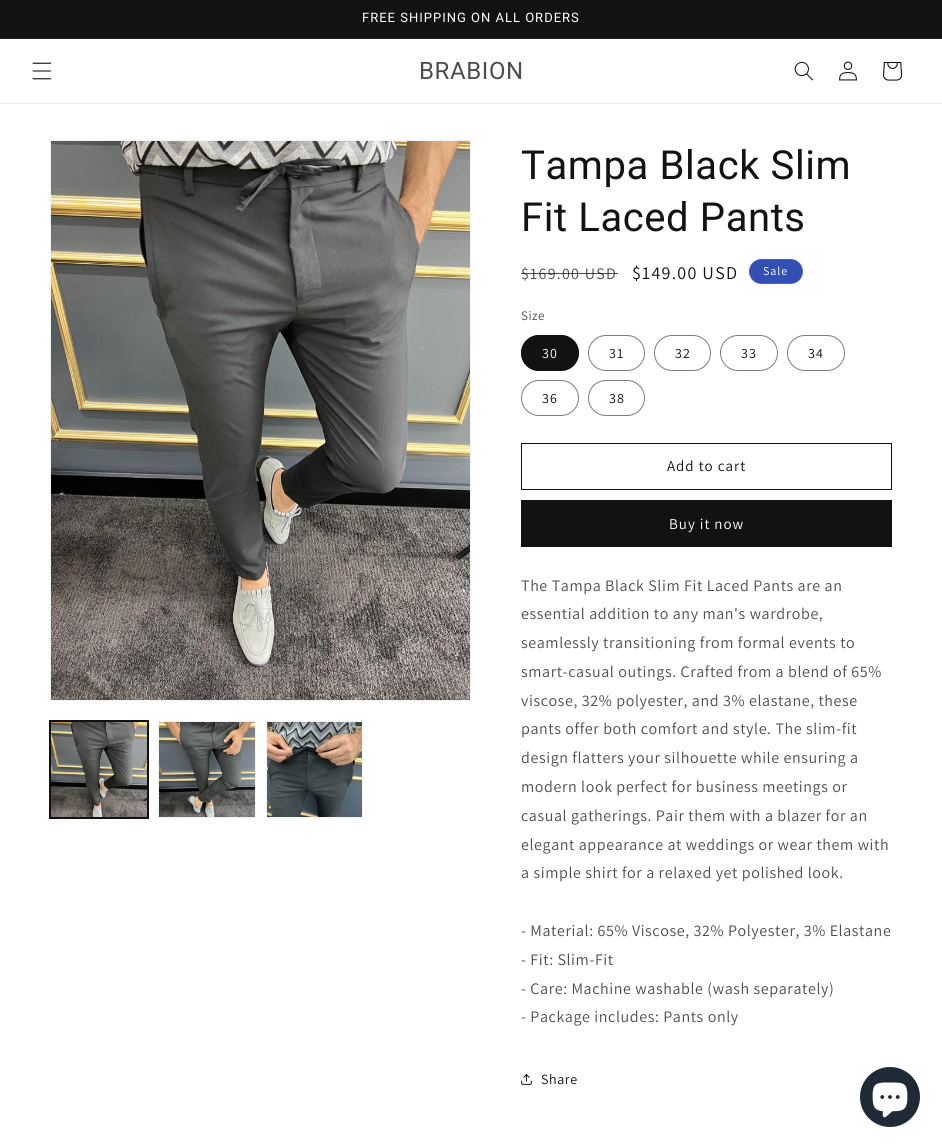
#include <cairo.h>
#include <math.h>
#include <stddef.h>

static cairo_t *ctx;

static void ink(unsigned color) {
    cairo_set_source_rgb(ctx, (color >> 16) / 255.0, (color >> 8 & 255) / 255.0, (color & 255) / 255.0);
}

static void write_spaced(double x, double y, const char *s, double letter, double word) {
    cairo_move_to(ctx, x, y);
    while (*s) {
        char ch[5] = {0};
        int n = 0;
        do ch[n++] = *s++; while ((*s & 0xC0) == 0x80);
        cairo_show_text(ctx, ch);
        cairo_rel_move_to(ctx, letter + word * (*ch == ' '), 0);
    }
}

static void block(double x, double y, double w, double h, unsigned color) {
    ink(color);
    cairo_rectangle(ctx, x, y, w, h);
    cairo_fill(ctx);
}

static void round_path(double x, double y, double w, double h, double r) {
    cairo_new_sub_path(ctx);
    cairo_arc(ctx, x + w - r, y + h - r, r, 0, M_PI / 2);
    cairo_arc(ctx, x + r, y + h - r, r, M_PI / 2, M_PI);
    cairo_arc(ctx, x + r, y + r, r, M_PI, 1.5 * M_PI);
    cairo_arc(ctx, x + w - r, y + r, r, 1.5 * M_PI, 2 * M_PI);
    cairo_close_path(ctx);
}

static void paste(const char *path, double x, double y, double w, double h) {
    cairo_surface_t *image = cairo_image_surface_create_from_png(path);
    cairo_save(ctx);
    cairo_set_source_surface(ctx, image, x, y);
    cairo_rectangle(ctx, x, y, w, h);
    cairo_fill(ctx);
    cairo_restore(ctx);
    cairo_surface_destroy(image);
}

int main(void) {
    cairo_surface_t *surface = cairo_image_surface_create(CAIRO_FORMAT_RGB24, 942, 1148);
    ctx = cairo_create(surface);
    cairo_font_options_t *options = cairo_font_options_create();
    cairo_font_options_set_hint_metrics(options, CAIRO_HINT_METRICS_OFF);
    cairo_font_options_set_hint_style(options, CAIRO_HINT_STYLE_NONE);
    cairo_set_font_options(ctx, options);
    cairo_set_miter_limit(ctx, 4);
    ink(0xffffff);
    cairo_paint(ctx);
    block(0, 0, 942, 38, 0x121212);
    block(0, 38, 942, 1, 0x252525);
    cairo_select_font_face(ctx, "Roboto", CAIRO_FONT_SLANT_NORMAL, CAIRO_FONT_WEIGHT_NORMAL);
    cairo_set_font_size(ctx, 13);
    ink(0xffffff);
    write_spaced(362, 22, "FREE SHIPPING ON ALL ORDERS", 1, 0);
    block(0, 103, 942, 1, 0xececec);
    paste("pic1.png", 32, 62, 20, 18);
    cairo_set_font_size(ctx, 24);
    ink(0x4d4d4d);
    write_spaced(419, 79, "BRABION", 0.6, 0);
    paste("pic2.png", 794, 61, 19, 20);
    paste("pic3.png", 839, 61, 18, 20);
    paste("pic4.png", 883, 62, 20, 19);
    cairo_rectangle(ctx, 50.5, 140.5, 420, 560);
    ink(0xf3f3f3);
    cairo_set_line_width(ctx, 1);
    cairo_stroke(ctx);
    paste("pic5.png", 51, 141, 419, 559);
    cairo_rectangle(ctx, 49.5, 720.5, 99, 98);
    ink(0x121212);
    cairo_stroke(ctx);
    cairo_rectangle(ctx, 50.5, 721.5, 97, 96);
    cairo_stroke(ctx);
    paste("pic6.png", 51, 722, 96, 95);
    cairo_rectangle(ctx, 158.5, 721.5, 97, 96);
    ink(0xf3f3f3);
    cairo_stroke(ctx);
    paste("pic7.png", 159, 722, 96, 95);
    cairo_rectangle(ctx, 266.5, 721.5, 96, 96);
    cairo_stroke(ctx);
    paste("pic8.png", 267, 722, 95, 95);
    cairo_set_font_size(ctx, 40);
    ink(0x121212);
    write_spaced(521, 179, "Tampa Black Slim", 0.6, 0);
    write_spaced(521, 231, "Fit Laced Pants", 0.6, 0);
    cairo_select_font_face(ctx, "Assistant", CAIRO_FONT_SLANT_NORMAL, CAIRO_FONT_WEIGHT_NORMAL);
    cairo_set_font_size(ctx, 16);
    ink(0x4d4d4d);
    write_spaced(521, 279, "$169.00 USD", 1.25, 0);
    cairo_set_source_rgba(ctx, 0.071, 0.071, 0.071, 0.75);
    cairo_rectangle(ctx, 521, 273, 97, 1);
    cairo_fill(ctx);
    cairo_set_font_size(ctx, 18);
    ink(0x121212);
    write_spaced(632, 279, "$149.00 USD", 1.25, 0);
    ink(0x334fb4);
    round_path(749, 259, 54, 25, 12.5);
    cairo_fill(ctx);
    round_path(749.5, 259.5, 53, 24, 12);
    cairo_set_source_rgba(ctx, 1, 1, 1, 0.1);
    cairo_stroke(ctx);
    cairo_set_font_size(ctx, 12);
    ink(0xffffff);
    write_spaced(763, 275, "Sale", 1, 0);
    cairo_set_font_size(ctx, 13);
    ink(0x4d4d4d);
    write_spaced(521, 320, "Size", 0.5, 0);
    ink(0x121212);
    round_path(521, 335, 58, 36, 18);
    cairo_fill(ctx);
    round_path(521.5, 335.5, 57, 35, 17.5);
    cairo_set_source_rgba(ctx, 0.071, 0.071, 0.071, 0.55);
    cairo_stroke(ctx);
    cairo_set_font_size(ctx, 14);
    ink(0xffffff);
    write_spaced(542, 358, "30", 1, 0);
    round_path(588.5, 335.5, 56, 35, 17.5);
    ink(0x7d7d7d);
    cairo_stroke(ctx);
    ink(0x121212);
    write_spaced(609, 358, "31", 1, 0);
    round_path(654.5, 335.5, 56, 35, 17.5);
    ink(0x7d7d7d);
    cairo_stroke(ctx);
    ink(0x121212);
    write_spaced(675, 358, "32", 1, 0);
    round_path(720.5, 335.5, 57, 35, 17.5);
    ink(0x7d7d7d);
    cairo_stroke(ctx);
    ink(0x121212);
    write_spaced(741, 358, "33", 1, 0);
    round_path(787.5, 335.5, 57, 35, 17.5);
    ink(0x7d7d7d);
    cairo_stroke(ctx);
    ink(0x121212);
    write_spaced(808, 358, "34", 1, 0);
    round_path(521.5, 380.5, 57, 35, 17.5);
    ink(0x7d7d7d);
    cairo_stroke(ctx);
    ink(0x121212);
    write_spaced(542, 403, "36", 1, 0);
    round_path(588.5, 380.5, 56, 35, 17.5);
    ink(0x7d7d7d);
    cairo_stroke(ctx);
    ink(0x121212);
    write_spaced(609, 403, "38", 1, 0);
    cairo_rectangle(ctx, 521.5, 443.5, 370, 46);
    cairo_stroke(ctx);
    cairo_set_font_size(ctx, 15);
    write_spaced(667, 471, "Add to cart", 1, 0);
    block(521, 500, 371, 47, 0x121212);
    ink(0xffffff);
    write_spaced(669, 529, "Buy it now", 1, 0);
    cairo_set_font_size(ctx, 16);
    ink(0x4d4d4d);
    write_spaced(521, 591, "The Tampa Black Slim Fit Laced Pants are an", 0.6, 0);
    write_spaced(521, 619, "essential addition to any man's wardrobe,", 0.6, 0);
    write_spaced(521, 648, "seamlessly transitioning from formal events to", 0.6, 0);
    write_spaced(521, 677, "smart-casual outings. Crafted from a blend of 65%", 0.6, 0);
    write_spaced(521, 706, "viscose, 32% polyester, and 3% elastane, these", 0.6, 0);
    write_spaced(521, 734, "pants offer both comfort and style. The slim-fit", 0.6, 0);
    write_spaced(521, 763, "design flatters your silhouette while ensuring a", 0.6, 0);
    write_spaced(521, 792, "modern look perfect for business meetings or", 0.6, 0);
    write_spaced(521, 821, "casual gatherings. Pair them with a blazer for an", 0.6, 0);
    write_spaced(521, 850, "elegant appearance at weddings or wear them with", 0.6, 0);
    write_spaced(521, 878, "a simple shirt for a relaxed yet polished look.", 0.6, 0);
    write_spaced(521, 936, "- Material: 65% Viscose, 32% Polyester, 3% Elastane", 0.6, 0);
    write_spaced(521, 965, "- Fit: Slim-Fit", 0.6, 0);
    write_spaced(521, 994, "- Care: Machine washable (wash separately)", 0.6, 0);
    write_spaced(521, 1022, "- Package includes: Pants only", 0.6, 0);
    paste("pic9.png", 521, 1074, 11, 11);
    cairo_set_font_size(ctx, 14);
    ink(0x121212);
    write_spaced(541, 1084, "Share", 0.6, 0);
    ink(0x202a36);
    cairo_new_path(ctx);
    cairo_arc(ctx, 890, 1097, 30, 0, 2 * M_PI);
    cairo_fill(ctx);
    paste("pic10.png", 872, 1082, 36, 36);
    cairo_surface_write_to_png(surface, "screenshot.png");
    cairo_font_options_destroy(options);
    cairo_destroy(ctx);
    cairo_surface_destroy(surface);
    return 0;
}
